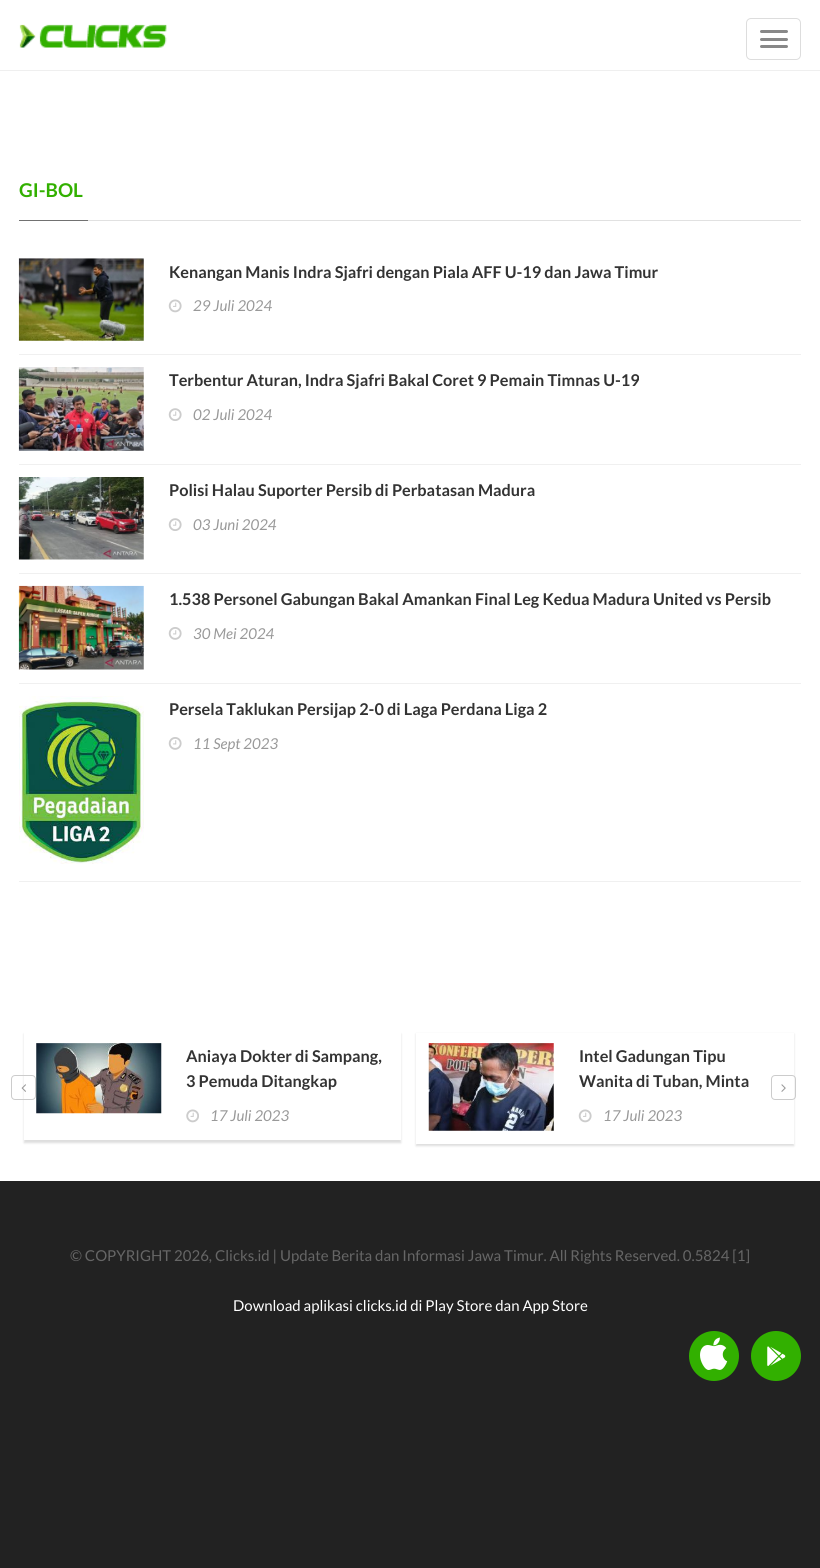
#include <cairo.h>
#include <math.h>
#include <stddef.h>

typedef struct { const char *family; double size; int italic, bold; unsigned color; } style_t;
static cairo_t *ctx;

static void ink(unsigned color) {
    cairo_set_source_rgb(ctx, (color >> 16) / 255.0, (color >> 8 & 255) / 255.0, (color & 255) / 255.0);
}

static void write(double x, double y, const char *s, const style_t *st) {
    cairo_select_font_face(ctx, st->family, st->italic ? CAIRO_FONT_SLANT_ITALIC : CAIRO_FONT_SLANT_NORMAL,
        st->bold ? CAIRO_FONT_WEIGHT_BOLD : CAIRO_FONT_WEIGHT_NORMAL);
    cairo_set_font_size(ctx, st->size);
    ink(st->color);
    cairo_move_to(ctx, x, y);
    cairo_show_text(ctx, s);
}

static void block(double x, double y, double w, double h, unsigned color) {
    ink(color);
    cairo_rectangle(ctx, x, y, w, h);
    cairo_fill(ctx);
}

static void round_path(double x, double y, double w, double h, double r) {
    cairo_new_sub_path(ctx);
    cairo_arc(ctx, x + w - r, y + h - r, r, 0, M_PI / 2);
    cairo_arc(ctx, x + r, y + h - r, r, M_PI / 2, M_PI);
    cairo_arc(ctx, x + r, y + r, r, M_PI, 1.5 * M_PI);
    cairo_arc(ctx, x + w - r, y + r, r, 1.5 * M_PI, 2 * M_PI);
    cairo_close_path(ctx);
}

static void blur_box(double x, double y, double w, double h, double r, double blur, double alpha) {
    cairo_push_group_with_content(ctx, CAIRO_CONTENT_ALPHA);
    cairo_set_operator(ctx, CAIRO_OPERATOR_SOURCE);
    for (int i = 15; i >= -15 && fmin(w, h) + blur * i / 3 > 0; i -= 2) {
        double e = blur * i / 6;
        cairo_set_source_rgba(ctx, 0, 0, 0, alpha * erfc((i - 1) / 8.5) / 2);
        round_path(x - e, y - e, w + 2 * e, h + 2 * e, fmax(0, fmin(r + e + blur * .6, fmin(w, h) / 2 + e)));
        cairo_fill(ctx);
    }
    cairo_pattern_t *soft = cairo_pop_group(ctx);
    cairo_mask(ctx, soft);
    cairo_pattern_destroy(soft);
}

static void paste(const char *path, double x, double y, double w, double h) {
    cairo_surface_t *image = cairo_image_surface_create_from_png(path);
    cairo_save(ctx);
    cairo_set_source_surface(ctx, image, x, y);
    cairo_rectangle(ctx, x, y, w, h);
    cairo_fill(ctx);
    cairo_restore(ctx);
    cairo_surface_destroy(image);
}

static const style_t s1 = {"Lato", 19, 0, 1, 0x32b000};
static const style_t s2 = {"Lato", 16.25, 0, 1, 0x333333};
static const style_t s3 = {"Lato", 15, 1, 0, 0x999999};
static const style_t s4 = {"Lato", 15, 0, 0, 0x666666};
static const style_t s5 = {"Lato", 15, 0, 0, 0xffffff};

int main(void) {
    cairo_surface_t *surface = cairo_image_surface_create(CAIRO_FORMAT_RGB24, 820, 1568);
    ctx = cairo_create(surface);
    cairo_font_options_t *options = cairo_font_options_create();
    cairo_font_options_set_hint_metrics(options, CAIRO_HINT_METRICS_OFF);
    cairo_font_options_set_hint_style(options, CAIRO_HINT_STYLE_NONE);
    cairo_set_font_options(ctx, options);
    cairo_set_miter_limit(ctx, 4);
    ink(0xffffff);
    cairo_paint(ctx);
    block(0, 70, 820, 1, 0xefefef);
    paste("pic1.png", 19, 24, 148, 24);
    round_path(746.5, 18.5, 54, 41, 4.5);
    ink(0xdddddd);
    cairo_set_line_width(ctx, 1);
    cairo_stroke(ctx);
    ink(0x888888);
    round_path(760, 30, 28, 3, 1.5);
    cairo_fill(ctx);
    round_path(760, 38, 28, 3, 1.5);
    cairo_fill(ctx);
    round_path(760, 45, 28, 3, 1.5);
    cairo_fill(ctx);
    block(88, 220, 713, 1, 0xe1e1e1);
    block(19, 220, 69, 1, 0x717171);
    write(19, 197, "GI-BOL", &s1);
    block(19, 354, 782, 1, 0xf0f0f0);
    paste("pic2.png", 18, 258, 126, 83);
    write(169, 278, "Kenangan Manis Indra Sjafri dengan Piala AFF U-19 dan Jawa Timur", &s2);
    paste("pic3.png", 168, 299, 14, 14);
    write(193, 311, "29 Juli 2024", &s3);
    block(19, 464, 782, 1, 0xf0f0f0);
    paste("pic4.png", 18, 367, 126, 84);
    write(169, 386, "Terbentur Aturan, Indra Sjafri Bakal Coret 9 Pemain Timnas U-19", &s2);
    paste("pic5.png", 168, 408, 14, 13);
    write(193, 420, "02 Juli 2024", &s3);
    block(19, 573, 782, 1, 0xf0f0f0);
    paste("pic6.png", 18, 477, 126, 83);
    write(169, 496, "Polisi Halau Suporter Persib di Perbatasan Madura", &s2);
    paste("pic5.png", 168, 518, 14, 13);
    write(193, 530, "03 Juni 2024", &s3);
    block(19, 683, 782, 1, 0xf0f0f0);
    paste("pic7.png", 18, 585, 126, 85);
    write(169, 605, "1.538 Personel Gabungan Bakal Amankan Final Leg Kedua Madura United vs Persib", &s2);
    paste("pic8.png", 168, 627, 14, 13);
    write(193, 639, "30 Mei 2024", &s3);
    block(19, 881, 782, 1, 0xf0f0f0);
    paste("pic9.png", 19, 696, 125, 168);
    write(169, 715, "Persela Taklukan Persijap 2-0 di Laga Perdana Liga 2", &s2);
    paste("pic8.png", 168, 737, 14, 13);
    write(193, 749, "11 Sept 2023", &s3);
    cairo_save(ctx);
    cairo_set_fill_rule(ctx, CAIRO_FILL_RULE_EVEN_ODD);
    cairo_new_path(ctx);
    cairo_move_to(ctx, 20, 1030);
    cairo_line_to(ctx, 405, 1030);
    cairo_line_to(ctx, 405, 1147);
    cairo_line_to(ctx, 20, 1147);
    cairo_close_path(ctx);
    cairo_move_to(ctx, 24, 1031);
    cairo_line_to(ctx, 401, 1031);
    cairo_line_to(ctx, 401, 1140);
    cairo_line_to(ctx, 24, 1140);
    cairo_close_path(ctx);
    cairo_clip(ctx);
    ink(0xdedede);
    blur_box(24, 1034, 377, 109, 0, 1, 1);
    cairo_restore(ctx);
    paste("pic10.png", 36, 1043, 126, 71);
    write(186, 1062, "Aniaya Dokter di Sampang,", &s2);
    write(186, 1087, "3 Pemuda Ditangkap", &s2);
    paste("pic11.png", 186, 1109, 13, 14);
    write(210, 1121, "17 Juli 2023", &s3);
    ink(0xdedede);
    blur_box(416, 1034, 378, 112, 0, 1, 1);
    block(416, 1033, 378, 111, 0xffffff);
    paste("pic12.png", 428, 1043, 126, 88);
    write(579, 1062, "Intel Gadungan Tipu", &s2);
    write(579, 1087, "Wanita di Tuban, Minta", &s2);
    paste("pic3.png", 578, 1109, 14, 14);
    write(603, 1121, "17 Juli 2023", &s3);
    round_path(11.5, 1075.5, 24, 24, 3.5);
    ink(0xcccccc);
    cairo_stroke(ctx);
    paste("pic13.png", 21, 1084, 5, 8);
    round_path(771.5, 1075.5, 24, 24, 3.5);
    cairo_stroke(ctx);
    paste("pic14.png", 781, 1084, 5, 8);
    block(0, 1181, 820, 387, 0x222222);
    write(70, 1261, "© COPYRIGHT 2026, Clicks.id | Update Berita dan Informasi Jawa Timur. All Rights Reserved. 0.5824 [1]", &s4);
    write(233, 1311, "Download aplikasi clicks.id di Play Store dan App Store", &s5);
    ink(0x32b000);
    cairo_new_path(ctx);
    cairo_arc(ctx, 714, 1356, 25, 0, 2 * M_PI);
    cairo_fill(ctx);
    paste("pic15.png", 700, 1337, 28, 33);
    cairo_arc(ctx, 776, 1356, 25, 0, 2 * M_PI);
    cairo_fill(ctx);
    paste("pic16.png", 767, 1346, 19, 20);
    cairo_surface_write_to_png(surface, "screenshot.png");
    cairo_font_options_destroy(options);
    cairo_destroy(ctx);
    cairo_surface_destroy(surface);
    return 0;
}
